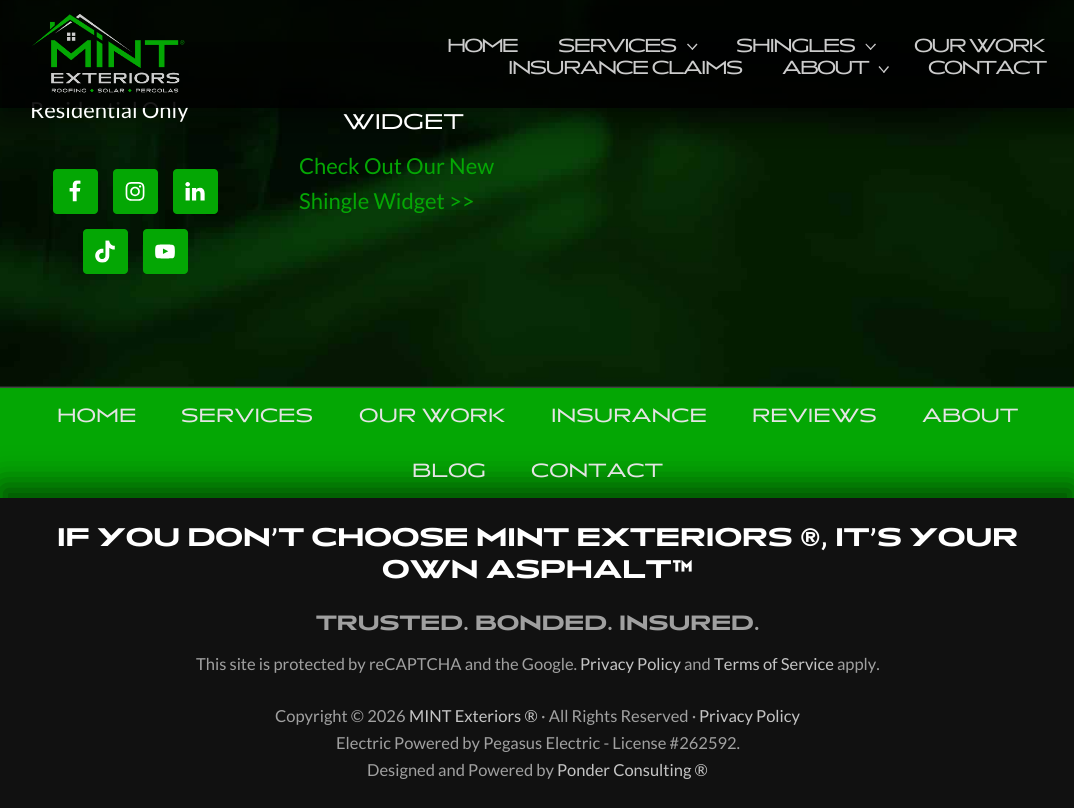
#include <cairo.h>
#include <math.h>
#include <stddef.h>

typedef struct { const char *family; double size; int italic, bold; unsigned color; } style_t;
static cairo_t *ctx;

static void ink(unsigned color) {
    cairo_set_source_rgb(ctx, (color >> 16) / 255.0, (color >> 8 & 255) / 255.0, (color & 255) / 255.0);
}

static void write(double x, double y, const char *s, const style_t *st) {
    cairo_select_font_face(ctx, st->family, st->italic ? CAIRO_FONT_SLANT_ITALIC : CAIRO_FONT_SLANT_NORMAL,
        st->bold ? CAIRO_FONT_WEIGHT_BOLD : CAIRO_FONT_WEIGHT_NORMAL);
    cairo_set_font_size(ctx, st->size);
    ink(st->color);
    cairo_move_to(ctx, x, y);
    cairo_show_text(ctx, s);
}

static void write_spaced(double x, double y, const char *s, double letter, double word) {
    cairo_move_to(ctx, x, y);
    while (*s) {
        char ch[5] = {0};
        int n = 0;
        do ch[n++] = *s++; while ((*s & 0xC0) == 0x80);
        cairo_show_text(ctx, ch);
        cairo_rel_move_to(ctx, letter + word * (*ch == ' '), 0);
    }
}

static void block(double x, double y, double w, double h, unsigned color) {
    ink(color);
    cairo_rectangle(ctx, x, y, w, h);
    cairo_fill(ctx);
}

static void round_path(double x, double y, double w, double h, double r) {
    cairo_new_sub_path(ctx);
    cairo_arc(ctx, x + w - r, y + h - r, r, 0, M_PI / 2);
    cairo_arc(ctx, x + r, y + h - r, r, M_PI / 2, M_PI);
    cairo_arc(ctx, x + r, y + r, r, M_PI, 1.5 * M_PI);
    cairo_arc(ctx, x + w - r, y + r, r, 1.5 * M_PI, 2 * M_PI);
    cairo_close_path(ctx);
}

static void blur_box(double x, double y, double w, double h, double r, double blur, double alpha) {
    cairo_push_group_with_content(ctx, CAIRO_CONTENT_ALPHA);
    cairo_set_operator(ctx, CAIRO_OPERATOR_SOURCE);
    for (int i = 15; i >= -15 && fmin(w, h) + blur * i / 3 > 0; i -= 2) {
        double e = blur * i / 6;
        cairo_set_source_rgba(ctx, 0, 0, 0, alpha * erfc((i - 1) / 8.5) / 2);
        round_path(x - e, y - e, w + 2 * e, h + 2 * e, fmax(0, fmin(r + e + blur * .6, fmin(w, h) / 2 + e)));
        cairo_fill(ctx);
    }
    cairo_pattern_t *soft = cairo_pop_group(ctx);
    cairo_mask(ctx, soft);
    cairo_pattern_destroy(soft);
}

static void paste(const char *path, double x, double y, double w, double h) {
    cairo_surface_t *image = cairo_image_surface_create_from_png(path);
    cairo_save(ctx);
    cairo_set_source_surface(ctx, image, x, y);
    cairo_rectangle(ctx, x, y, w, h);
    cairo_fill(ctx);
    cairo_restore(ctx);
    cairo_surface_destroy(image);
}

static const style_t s1 = {"Lato", 22, 0, 0, 0xffffff};
static const style_t s2 = {"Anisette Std", 22, 0, 0, 0xffffff};
static const style_t s3 = {"Lato", 22, 0, 0, 0x04a704};
static const style_t s4 = {"Anisette Std", 19.75, 0, 0, 0xe4e4e4};
static const style_t s5 = {"Anisette Std", 26.4, 0, 1, 0xffffff};
static const style_t s6 = {"Anisette Std", 21.45, 0, 1, 0xa0a0a0};
static const style_t s7 = {"Lato", 16.5, 0, 0, 0xa0a0a0};
static const style_t s8 = {"Lato", 16.5, 0, 0, 0xc4c4c4};

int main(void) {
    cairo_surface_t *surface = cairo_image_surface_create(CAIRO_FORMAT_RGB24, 1074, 808);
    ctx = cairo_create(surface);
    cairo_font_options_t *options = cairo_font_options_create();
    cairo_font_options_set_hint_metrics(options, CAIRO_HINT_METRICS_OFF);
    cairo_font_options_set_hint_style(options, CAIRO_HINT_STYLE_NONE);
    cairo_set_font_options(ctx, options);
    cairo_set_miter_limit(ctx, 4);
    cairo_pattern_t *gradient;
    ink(0x434343);
    cairo_paint(ctx);
    paste("pic2.png", 0, 0, 1074, 387);
    cairo_save(ctx);
    cairo_set_fill_rule(ctx, CAIRO_FILL_RULE_EVEN_ODD);
    cairo_new_path(ctx);
    cairo_move_to(ctx, 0, 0);
    cairo_line_to(ctx, 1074, 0);
    cairo_line_to(ctx, 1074, 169);
    cairo_line_to(ctx, 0, 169);
    cairo_close_path(ctx);
    cairo_move_to(ctx, 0, 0);
    cairo_line_to(ctx, 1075, 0);
    cairo_line_to(ctx, 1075, 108);
    cairo_line_to(ctx, 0, 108);
    cairo_close_path(ctx);
    cairo_clip(ctx);
    ink(0x000000);
    blur_box(0, 13, 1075, 107, 0, 16, 0.56);
    cairo_restore(ctx);
    write(30, 118, "Residential Only", &s1);
    cairo_set_source_rgba(ctx, 0, 0, 0, 0.8);
    cairo_rectangle(ctx, 0, 0, 1074, 108);
    cairo_fill(ctx);
    gradient = cairo_pattern_create_linear(538, 108, 538, 0);
    cairo_pattern_add_color_stop_rgba(gradient, 0, 0, 0, 0, 0.5);
    cairo_pattern_add_color_stop_rgba(gradient, 1, 0, 0, 0, 0.2);
    cairo_set_source(ctx, gradient);
    cairo_pattern_destroy(gradient);
    cairo_rectangle(ctx, 2, 42, 1072, 66);
    cairo_fill(ctx);
    paste("pic1.png", 32, 14, 153, 79);
    cairo_select_font_face(ctx, "Anisette Std", CAIRO_FONT_SLANT_NORMAL, CAIRO_FONT_WEIGHT_NORMAL);
    cairo_set_font_size(ctx, 19.4);
    ink(0xcccccc);
    write_spaced(447, 52, "HOME", -2, 0);
    write_spaced(558, 52, "SERVICES", -1.5, 0);
    cairo_new_path(ctx);
    cairo_move_to(ctx, 696.5, 43.5);
    cairo_line_to(ctx, 697.5, 44.5);
    cairo_line_to(ctx, 692.5, 50);
    cairo_line_to(ctx, 691.5, 49);
    cairo_close_path(ctx);
    cairo_fill(ctx);
    cairo_new_path(ctx);
    cairo_move_to(ctx, 688, 43.5);
    cairo_line_to(ctx, 693, 49);
    cairo_line_to(ctx, 692.5, 50);
    cairo_line_to(ctx, 687, 44.5);
    cairo_close_path(ctx);
    cairo_fill(ctx);
    write_spaced(736, 52, "SHINGLES", -1.5, 0);
    cairo_new_path(ctx);
    cairo_move_to(ctx, 875, 43.5);
    cairo_line_to(ctx, 876, 44.5);
    cairo_line_to(ctx, 870.5, 50);
    cairo_line_to(ctx, 870, 49);
    cairo_close_path(ctx);
    cairo_fill(ctx);
    cairo_new_path(ctx);
    cairo_move_to(ctx, 866, 43.5);
    cairo_line_to(ctx, 871.5, 49);
    cairo_line_to(ctx, 870.5, 50);
    cairo_line_to(ctx, 865.5, 44.5);
    cairo_close_path(ctx);
    cairo_fill(ctx);
    write_spaced(914, 52, "OUR WORK", -1.75, 0);
    write_spaced(508, 74, "INSURANCE CLAIMS", -1.5, 0);
    write_spaced(782, 74, "ABOUT", -1.75, 0);
    cairo_new_path(ctx);
    cairo_move_to(ctx, 888, 66);
    cairo_line_to(ctx, 889, 67);
    cairo_line_to(ctx, 884, 73);
    cairo_line_to(ctx, 883, 72);
    cairo_close_path(ctx);
    cairo_fill(ctx);
    cairo_new_path(ctx);
    cairo_move_to(ctx, 879.5, 66);
    cairo_line_to(ctx, 884.5, 72);
    cairo_line_to(ctx, 884, 73);
    cairo_line_to(ctx, 878.5, 67);
    cairo_close_path(ctx);
    cairo_fill(ctx);
    write_spaced(928, 74, "CONTACT", -1.75, 0);
    cairo_set_source_rgba(ctx, 0, 0, 0, 0.1);
    cairo_rectangle(ctx, 0, 386, 1074, 1);
    cairo_fill(ctx);
    ink(0x04a704);
    round_path(53, 169, 45, 45, 4);
    cairo_fill(ctx);
    paste("pic3.png", 69, 180, 12, 22);
    round_path(113, 169, 45, 45, 4);
    cairo_fill(ctx);
    paste("pic4.png", 125, 182, 20, 19);
    round_path(173, 169, 45, 45, 4);
    cairo_fill(ctx);
    paste("pic5.png", 185, 182, 20, 19);
    round_path(83, 229, 45, 45, 4);
    cairo_fill(ctx);
    paste("pic6.png", 95, 240, 20, 23);
    round_path(143, 229, 45, 45, 4);
    cairo_fill(ctx);
    paste("pic7.png", 155, 244, 20, 15);
    write(343, 129, "WIDGET", &s2);
    write(299, 174, "Check Out Our New", &s3);
    write(299, 209, "Shingle Widget >>", &s3);
    block(0, 388, 1074, 110, 0x04a704);
    write(57, 422, "HOME", &s4);
    write(181, 422, "SERVICES", &s4);
    write(359, 422, "OUR WORK", &s4);
    write(551, 422, "INSURANCE", &s4);
    write(752, 422, "REVIEWS", &s4);
    write(922, 422, "ABOUT", &s4);
    ink(0x000000);
    blur_box(0, 485, 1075, 311, 0, 16, 0.56);
    write(412, 477, "BLOG", &s4);
    write(531, 477, "CONTACT", &s4);
    block(0, 498, 1074, 310, 0x111111);
    write(57, 546, "IF YOU DON’T CHOOSE MINT EXTERIORS ®, IT’S YOUR", &s5);
    write(382, 578, "OWN ASPHALT™", &s5);
    write(316, 630, "TRUSTED. BONDED. INSURED.", &s6);
    write(196, 670, "This site is protected by reCAPTCHA and the Google.", &s7);
    write(580, 670, "Privacy Policy", &s8);
    write(684, 670, "and", &s7);
    write(714, 670, "Terms of Service", &s8);
    write(837, 670, "apply.", &s7);
    write(275, 722, "Copyright © 2026", &s7);
    write(409, 722, "MINT Exteriors ®", &s8);
    write(541, 722, "· All Rights Reserved ·", &s7);
    write(699, 722, "Privacy Policy", &s8);
    write(336, 749, "Electric Powered by Pegasus Electric - License #262592.", &s7);
    write(367, 776, "Designed and Powered by", &s7);
    write(557, 776, "Ponder Consulting ®", &s8);
    cairo_surface_write_to_png(surface, "screenshot.png");
    cairo_font_options_destroy(options);
    cairo_destroy(ctx);
    cairo_surface_destroy(surface);
    return 0;
}
